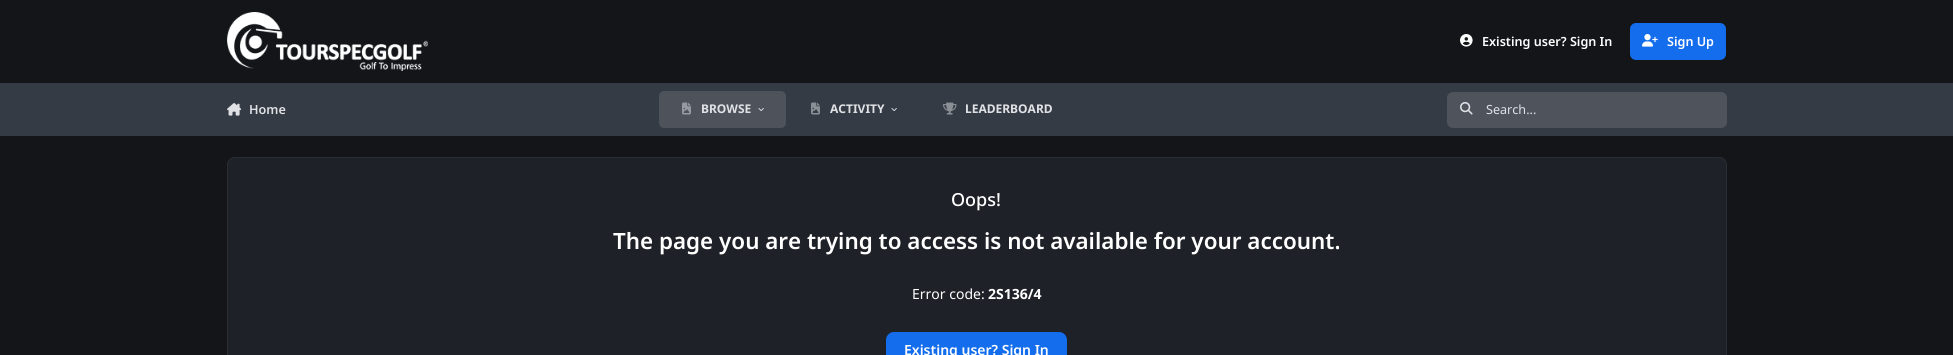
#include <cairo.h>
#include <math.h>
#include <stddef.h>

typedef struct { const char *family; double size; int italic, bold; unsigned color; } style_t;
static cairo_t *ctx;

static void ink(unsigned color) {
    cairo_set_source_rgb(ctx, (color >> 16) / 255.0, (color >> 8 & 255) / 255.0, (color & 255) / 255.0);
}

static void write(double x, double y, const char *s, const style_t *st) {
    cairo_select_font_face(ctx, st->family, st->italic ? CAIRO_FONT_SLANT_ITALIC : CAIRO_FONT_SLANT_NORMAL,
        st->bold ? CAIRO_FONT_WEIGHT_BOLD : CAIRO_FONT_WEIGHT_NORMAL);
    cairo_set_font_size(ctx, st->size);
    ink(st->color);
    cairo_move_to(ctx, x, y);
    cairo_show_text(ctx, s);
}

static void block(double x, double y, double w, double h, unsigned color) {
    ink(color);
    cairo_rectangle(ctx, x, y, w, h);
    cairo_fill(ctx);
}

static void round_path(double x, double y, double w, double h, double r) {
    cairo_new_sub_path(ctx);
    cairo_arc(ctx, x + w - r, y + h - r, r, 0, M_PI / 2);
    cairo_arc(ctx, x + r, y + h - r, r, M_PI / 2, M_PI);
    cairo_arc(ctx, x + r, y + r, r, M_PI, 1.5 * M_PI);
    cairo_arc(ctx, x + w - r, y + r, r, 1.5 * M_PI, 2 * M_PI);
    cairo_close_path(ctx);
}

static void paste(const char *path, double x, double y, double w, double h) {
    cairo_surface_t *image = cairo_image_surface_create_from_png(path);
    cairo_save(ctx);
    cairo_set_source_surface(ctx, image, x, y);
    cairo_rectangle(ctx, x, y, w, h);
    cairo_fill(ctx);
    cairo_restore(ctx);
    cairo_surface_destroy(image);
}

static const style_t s1 = {"Noto Sans SemiBold", 12.6, 0, 0, 0xffffff};
static const style_t s2 = {"Noto Sans SemiBold", 12.6, 0, 0, 0xdfe1e5};
static const style_t s3 = {"Noto Sans", 12, 0, 1, 0xdfe1e5};
static const style_t s4 = {"Noto Sans", 12.6, 0, 0, 0xdfe1e5};
static const style_t s5 = {"Noto Sans Medium", 18, 0, 0, 0xffffff};
static const style_t s6 = {"Noto Sans SemiBold", 22.4, 0, 0, 0xffffff};
static const style_t s7 = {"Noto Sans", 14, 0, 0, 0xffffff};
static const style_t s8 = {"Noto Sans", 14, 0, 1, 0xffffff};
static const style_t s9 = {"Noto Sans SemiBold", 14, 0, 0, 0xffffff};

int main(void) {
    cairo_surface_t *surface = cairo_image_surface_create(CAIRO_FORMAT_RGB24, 1953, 355);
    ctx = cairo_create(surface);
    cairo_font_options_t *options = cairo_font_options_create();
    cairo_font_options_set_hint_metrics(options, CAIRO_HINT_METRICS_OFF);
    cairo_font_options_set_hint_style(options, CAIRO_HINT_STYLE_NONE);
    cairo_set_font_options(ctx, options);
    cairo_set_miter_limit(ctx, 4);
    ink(0x131519);
    cairo_paint(ctx);
    paste("pic1.png", 227, 12, 201, 59);
    paste("pic2.png", 1460, 34, 13, 13);
    write(1482, 46, "Existing user? Sign In", &s1);
    ink(0x136dec);
    round_path(1630, 23, 96, 37, 6);
    cairo_fill(ctx);
    paste("pic3.png", 1642, 34, 16, 13);
    write(1667, 46, "Sign Up", &s1);
    block(0, 83, 1953, 53, 0x353b44);
    paste("pic4.png", 227, 103, 15, 13);
    write(249, 114, "Home", &s2);
    ink(0x4d525b);
    round_path(659, 91, 127, 37, 5);
    cairo_fill(ctx);
    paste("pic5.png", 682, 102, 9, 13);
    write(701, 113, "BROWSE", &s3);
    paste("pic6.png", 758, 108, 6, 3);
    paste("pic7.png", 811, 102, 9, 13);
    write(830, 113, "ACTIVITY", &s3);
    paste("pic8.png", 891, 108, 6, 3);
    paste("pic9.png", 943, 102, 14, 13);
    write(965, 113, "LEADERBOARD", &s3);
    ink(0x4f545c);
    round_path(1447, 92, 280, 36, 6);
    cairo_fill(ctx);
    paste("pic10.png", 1460, 102, 13, 13);
    write(1486, 114, "Search...", &s4);
    ink(0x1e2127);
    round_path(227.5, 157.5, 1499, 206, 7.5);
    cairo_fill_preserve(ctx);
    ink(0x292e35);
    cairo_set_line_width(ctx, 1);
    cairo_stroke(ctx);
    write(951, 206, "Oops!", &s5);
    write(613, 249, "The page you are trying to access is not available for your account.", &s6);
    write(912, 299, "Error code:", &s7);
    write(988, 299, "2S136/4", &s8);
    ink(0x136dec);
    round_path(886, 332, 181, 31, 8);
    cairo_fill(ctx);
    write(904, 355, "Existing user? Sign In", &s9);
    cairo_surface_write_to_png(surface, "screenshot.png");
    cairo_font_options_destroy(options);
    cairo_destroy(ctx);
    cairo_surface_destroy(surface);
    return 0;
}
